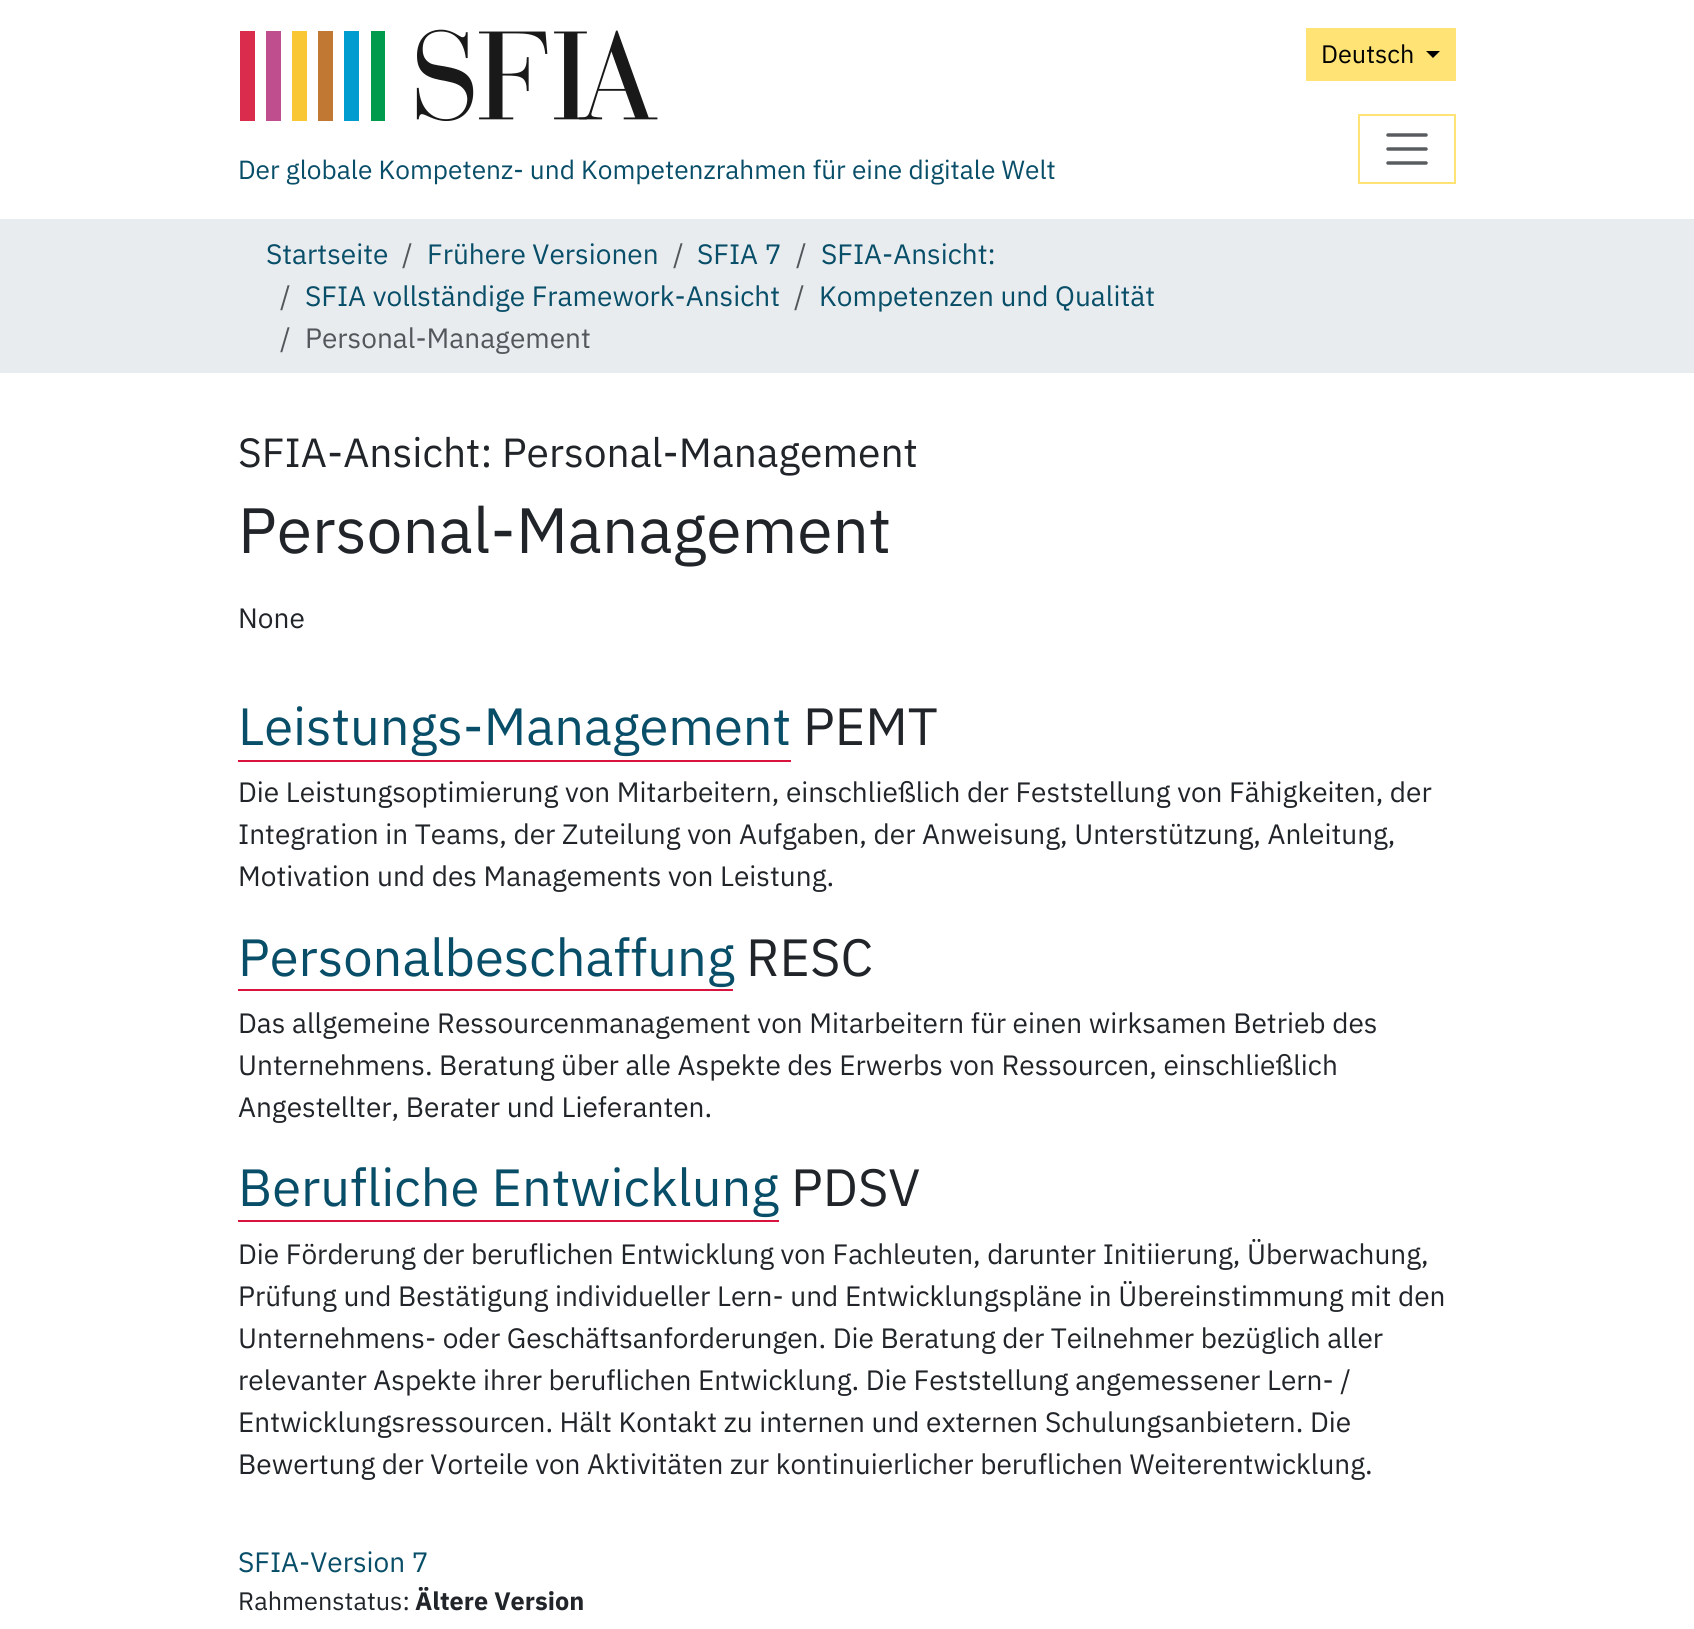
#include <cairo.h>
#include <math.h>
#include <stddef.h>

typedef struct { const char *family; double size; int italic, bold; unsigned color; } style_t;
static cairo_t *ctx;

static void ink(unsigned color) {
    cairo_set_source_rgb(ctx, (color >> 16) / 255.0, (color >> 8 & 255) / 255.0, (color & 255) / 255.0);
}

static void write(double x, double y, const char *s, const style_t *st) {
    cairo_select_font_face(ctx, st->family, st->italic ? CAIRO_FONT_SLANT_ITALIC : CAIRO_FONT_SLANT_NORMAL,
        st->bold ? CAIRO_FONT_WEIGHT_BOLD : CAIRO_FONT_WEIGHT_NORMAL);
    cairo_set_font_size(ctx, st->size);
    ink(st->color);
    cairo_move_to(ctx, x, y);
    cairo_show_text(ctx, s);
}

static void block(double x, double y, double w, double h, unsigned color) {
    ink(color);
    cairo_rectangle(ctx, x, y, w, h);
    cairo_fill(ctx);
}

static void paste(const char *path, double x, double y, double w, double h) {
    cairo_surface_t *image = cairo_image_surface_create_from_png(path);
    cairo_save(ctx);
    cairo_set_source_surface(ctx, image, x, y);
    cairo_rectangle(ctx, x, y, w, h);
    cairo_fill(ctx);
    cairo_restore(ctx);
    cairo_surface_destroy(image);
}

static const style_t s1 = {"IBM Plex Sans", 25.25, 0, 0, 0x000000};
static const style_t s2 = {"IBM Plex Sans", 26.25, 0, 0, 0x084e68};
static const style_t s3 = {"IBM Plex Sans", 28, 0, 0, 0x084e68};
static const style_t s4 = {"IBM Plex Sans", 28, 0, 0, 0x53575b};
static const style_t s5 = {"IBM Plex Sans", 40.75, 0, 0, 0x212529};
static const style_t s6 = {"IBM Plex Sans", 64, 0, 0, 0x212529};
static const style_t s7 = {"IBM Plex Sans", 28, 0, 0, 0x212529};
static const style_t s8 = {"IBM Plex Sans", 52.4, 0, 0, 0x084e68};
static const style_t s9 = {"IBM Plex Sans", 52.4, 0, 0, 0x212529};
static const style_t s10 = {"IBM Plex Sans", 25.25, 0, 0, 0x212529};
static const style_t s11 = {"IBM Plex Sans", 25.25, 0, 1, 0x212529};

int main(void) {
    cairo_surface_t *surface = cairo_image_surface_create(CAIRO_FORMAT_RGB24, 1694, 1629);
    ctx = cairo_create(surface);
    cairo_font_options_t *options = cairo_font_options_create();
    cairo_font_options_set_hint_metrics(options, CAIRO_HINT_METRICS_OFF);
    cairo_font_options_set_hint_style(options, CAIRO_HINT_STYLE_NONE);
    cairo_set_font_options(ctx, options);
    cairo_set_miter_limit(ctx, 4);
    ink(0xffffff);
    cairo_paint(ctx);
    block(1306, 28, 150, 53, 0xffe375);
    write(1321, 63, "Deutsch", &s1);
    cairo_new_path(ctx);
    cairo_move_to(ctx, 1426, 51);
    cairo_line_to(ctx, 1440, 51);
    cairo_line_to(ctx, 1433, 58);
    cairo_close_path(ctx);
    cairo_fill(ctx);
    paste("pic1.png", 240, 29, 418, 92);
    write(238, 179, "Der globale Kompetenz- und Kompetenzrahmen für eine digitale Welt", &s2);
    cairo_rectangle(ctx, 1359, 115, 96, 68);
    ink(0xffe375);
    cairo_stroke(ctx);
    cairo_new_path(ctx);
    cairo_move_to(ctx, 1388, 135);
    cairo_line_to(ctx, 1426, 135);
    cairo_move_to(ctx, 1388, 149);
    cairo_line_to(ctx, 1426, 149);
    cairo_move_to(ctx, 1388, 163);
    cairo_line_to(ctx, 1426, 163);
    ink(0x595c5f);
    cairo_set_line_width(ctx, 3.5);
    cairo_set_line_cap(ctx, CAIRO_LINE_CAP_ROUND);
    cairo_stroke(ctx);
    block(0, 219, 1694, 154, 0xe9ecef);
    write(266, 264, "Startseite", &s3);
    write(402, 264, "/", &s4);
    write(427, 264, "Frühere Versionen", &s3);
    write(673, 264, "/", &s4);
    write(697, 264, "SFIA 7", &s3);
    write(796, 264, "/", &s4);
    write(821, 264, "SFIA-Ansicht:", &s3);
    write(280, 306, "/", &s4);
    write(305, 306, "SFIA vollständige Framework-Ansicht", &s3);
    write(794, 306, "/", &s4);
    write(819, 306, "Kompetenzen und Qualität", &s3);
    write(280, 348, "/", &s4);
    write(305, 348, "Personal-Management", &s4);
    write(238, 467, "SFIA-Ansicht: Personal-Management", &s5);
    write(238, 553, "Personal-Management", &s6);
    write(238, 628, "None", &s7);
    write(238, 745, "Leistungs-Management", &s8);
    block(238, 760, 553, 2, 0xd8133d);
    write(803, 745, "PEMT", &s9);
    write(238, 802, "Die Leistungsoptimierung von Mitarbeitern, einschließlich der Feststellung von Fähigkeiten, der", &s7);
    write(238, 844, "Integration in Teams, der Zuteilung von Aufgaben, der Anweisung, Unterstützung, Anleitung,", &s7);
    write(238, 886, "Motivation und des Managements von Leistung.", &s7);
    write(238, 976, "Personalbeschaffung", &s8);
    block(238, 989, 495, 2, 0xd8133d);
    write(746, 976, "RESC", &s9);
    write(238, 1033, "Das allgemeine Ressourcenmanagement von Mitarbeitern für einen wirksamen Betrieb des", &s7);
    write(238, 1075, "Unternehmens. Beratung über alle Aspekte des Erwerbs von Ressourcen, einschließlich", &s7);
    write(238, 1117, "Angestellter, Berater und Lieferanten.", &s7);
    write(238, 1206, "Berufliche Entwicklung", &s8);
    block(238, 1220, 541, 2, 0xd8133d);
    write(791, 1206, "PDSV", &s9);
    write(238, 1264, "Die Förderung der beruflichen Entwicklung von Fachleuten, darunter Initiierung, Überwachung,", &s7);
    write(238, 1306, "Prüfung und Bestätigung individueller Lern- und Entwicklungspläne in Übereinstimmung mit den", &s7);
    write(238, 1348, "Unternehmens- oder Geschäftsanforderungen. Die Beratung der Teilnehmer bezüglich aller", &s7);
    write(238, 1390, "relevanter Aspekte ihrer beruflichen Entwicklung. Die Feststellung angemessener Lern- /", &s7);
    write(238, 1432, "Entwicklungsressourcen. Hält Kontakt zu internen und externen Schulungsanbietern. Die", &s7);
    write(238, 1474, "Bewertung der Vorteile von Aktivitäten zur kontinuierlicher beruflichen Weiterentwicklung.", &s7);
    write(238, 1572, "SFIA-Version 7", &s3);
    write(238, 1610, "Rahmenstatus:", &s10);
    write(415, 1610, "Ältere Version", &s11);
    cairo_surface_write_to_png(surface, "screenshot.png");
    cairo_font_options_destroy(options);
    cairo_destroy(ctx);
    cairo_surface_destroy(surface);
    return 0;
}
